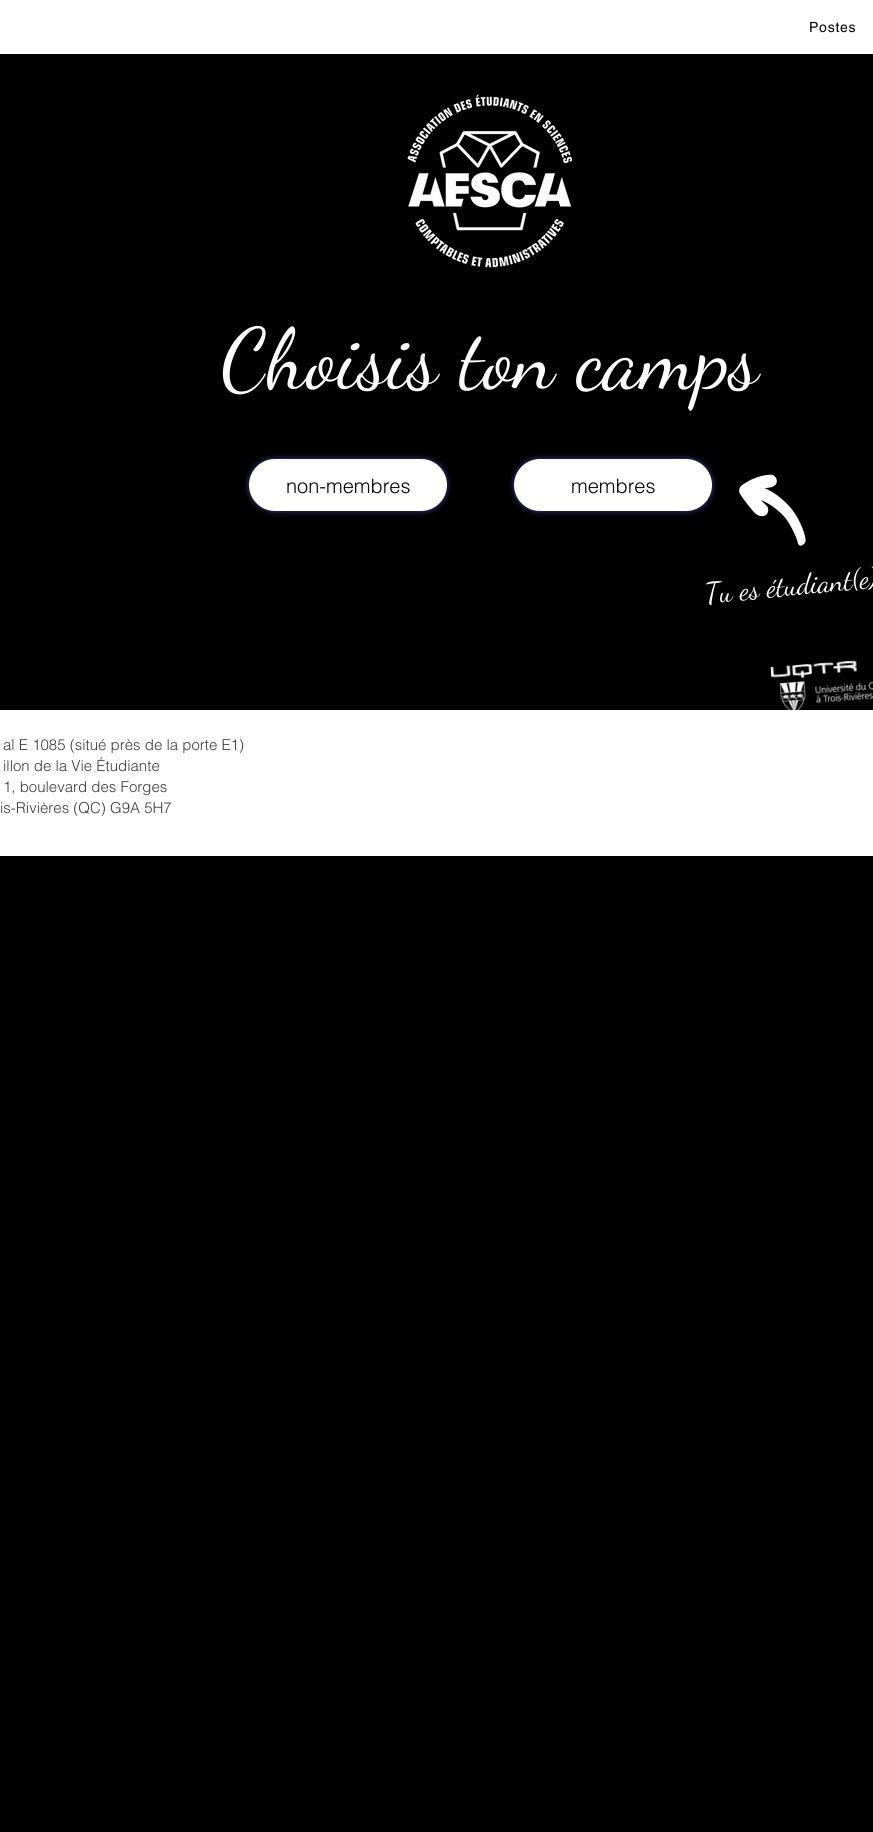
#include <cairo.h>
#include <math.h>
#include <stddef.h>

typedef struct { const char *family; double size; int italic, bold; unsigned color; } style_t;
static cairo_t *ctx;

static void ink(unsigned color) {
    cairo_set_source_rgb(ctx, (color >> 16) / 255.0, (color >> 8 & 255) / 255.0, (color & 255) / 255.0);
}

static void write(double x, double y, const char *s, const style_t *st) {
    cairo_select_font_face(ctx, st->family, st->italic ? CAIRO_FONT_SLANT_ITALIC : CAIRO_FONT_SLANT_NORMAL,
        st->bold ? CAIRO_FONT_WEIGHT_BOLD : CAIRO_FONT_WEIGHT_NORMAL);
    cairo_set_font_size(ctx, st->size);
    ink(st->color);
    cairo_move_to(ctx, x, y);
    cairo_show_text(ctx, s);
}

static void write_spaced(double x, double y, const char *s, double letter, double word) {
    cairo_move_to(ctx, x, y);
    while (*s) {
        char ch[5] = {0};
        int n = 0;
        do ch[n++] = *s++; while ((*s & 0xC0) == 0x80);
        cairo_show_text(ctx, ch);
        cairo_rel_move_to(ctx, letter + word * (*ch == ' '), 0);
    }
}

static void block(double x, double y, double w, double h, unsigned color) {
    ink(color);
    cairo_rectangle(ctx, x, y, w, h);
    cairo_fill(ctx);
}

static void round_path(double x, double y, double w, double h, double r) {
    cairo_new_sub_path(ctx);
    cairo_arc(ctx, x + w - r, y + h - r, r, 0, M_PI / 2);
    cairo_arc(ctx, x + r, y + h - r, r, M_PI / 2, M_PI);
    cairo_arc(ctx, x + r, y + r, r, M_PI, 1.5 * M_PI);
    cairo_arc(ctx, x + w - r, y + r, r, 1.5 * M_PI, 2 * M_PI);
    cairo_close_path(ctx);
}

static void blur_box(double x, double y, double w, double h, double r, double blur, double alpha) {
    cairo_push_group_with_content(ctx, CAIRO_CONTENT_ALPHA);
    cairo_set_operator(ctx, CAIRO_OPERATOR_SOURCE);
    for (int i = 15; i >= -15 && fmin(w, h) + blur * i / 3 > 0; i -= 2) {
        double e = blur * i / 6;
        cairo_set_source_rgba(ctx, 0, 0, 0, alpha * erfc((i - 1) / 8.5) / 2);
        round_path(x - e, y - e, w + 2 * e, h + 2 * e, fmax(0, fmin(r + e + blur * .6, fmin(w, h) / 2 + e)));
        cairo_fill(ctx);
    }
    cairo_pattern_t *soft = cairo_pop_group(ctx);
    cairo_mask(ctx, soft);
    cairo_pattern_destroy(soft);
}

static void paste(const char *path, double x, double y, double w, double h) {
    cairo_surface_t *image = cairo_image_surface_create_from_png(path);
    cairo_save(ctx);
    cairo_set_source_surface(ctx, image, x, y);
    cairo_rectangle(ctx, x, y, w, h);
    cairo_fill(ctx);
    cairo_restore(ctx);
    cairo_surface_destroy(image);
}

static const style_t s1 = {"Dancing Script", 85, 0, 0, 0xffffff};
static const style_t s2 = {"helvetica Light", 20, 0, 0, 0x000000};
static const style_t s3 = {"Dancing Script", 29, 0, 0, 0xffffff};
static const style_t s4 = {"helvetica Light", 15, 0, 0, 0x3b3a3a};

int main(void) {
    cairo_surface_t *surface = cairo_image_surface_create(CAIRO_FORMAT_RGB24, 873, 1832);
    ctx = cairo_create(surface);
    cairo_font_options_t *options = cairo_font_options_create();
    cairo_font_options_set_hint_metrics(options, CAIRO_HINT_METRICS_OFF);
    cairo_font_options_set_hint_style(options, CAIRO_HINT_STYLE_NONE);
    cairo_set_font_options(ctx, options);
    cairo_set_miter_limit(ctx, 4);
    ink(0x000000);
    cairo_paint(ctx);
    block(0, 0, 873, 54, 0xffffff);
    cairo_select_font_face(ctx, "helvetica", CAIRO_FONT_SLANT_NORMAL, CAIRO_FONT_WEIGHT_NORMAL);
    cairo_set_font_size(ctx, 14);
    ink(0x000000);
    write_spaced(809, 32, "Postes", 0.75, 0);
    paste("pic1.png", 407, 94, 166, 174);
    write(221, 387, "Choisis ton camps", &s1);
    ink(0x5f5bcd);
    blur_box(249, 459, 198, 52, 26, 3, 0.7);
    ink(0xffffff);
    round_path(249, 459, 198, 52, 26);
    cairo_fill(ctx);
    write(286, 493, "non-membres", &s2);
    ink(0x5f5bcd);
    blur_box(514, 459, 198, 52, 26, 3, 0.7);
    ink(0xffffff);
    round_path(514, 459, 198, 52, 26);
    cairo_fill(ctx);
    write(571, 493, "membres", &s2);
    paste("pic2.png", 739, 474, 67, 72);
    cairo_save(ctx);
    cairo_translate(ctx, 706, 603);
    cairo_rotate(ctx, -5.5 * M_PI / 180);
    write(0, 0, "Tu es étudiant(e) en", &s3);
    cairo_restore(ctx);
    paste("pic3.png", 770, 660, 103, 50);
    block(0, 710, 873, 146, 0xffffff);
    write(3, 750, "al E 1085 (situé près de la porte E1)", &s4);
    write(3, 771, "illon de la Vie Étudiante", &s4);
    write(3, 792, "1, boulevard des Forges", &s4);
    write(0, 813, "is-Rivières (QC) G9A 5H7", &s4);
    cairo_surface_write_to_png(surface, "screenshot.png");
    cairo_font_options_destroy(options);
    cairo_destroy(ctx);
    cairo_surface_destroy(surface);
    return 0;
}
